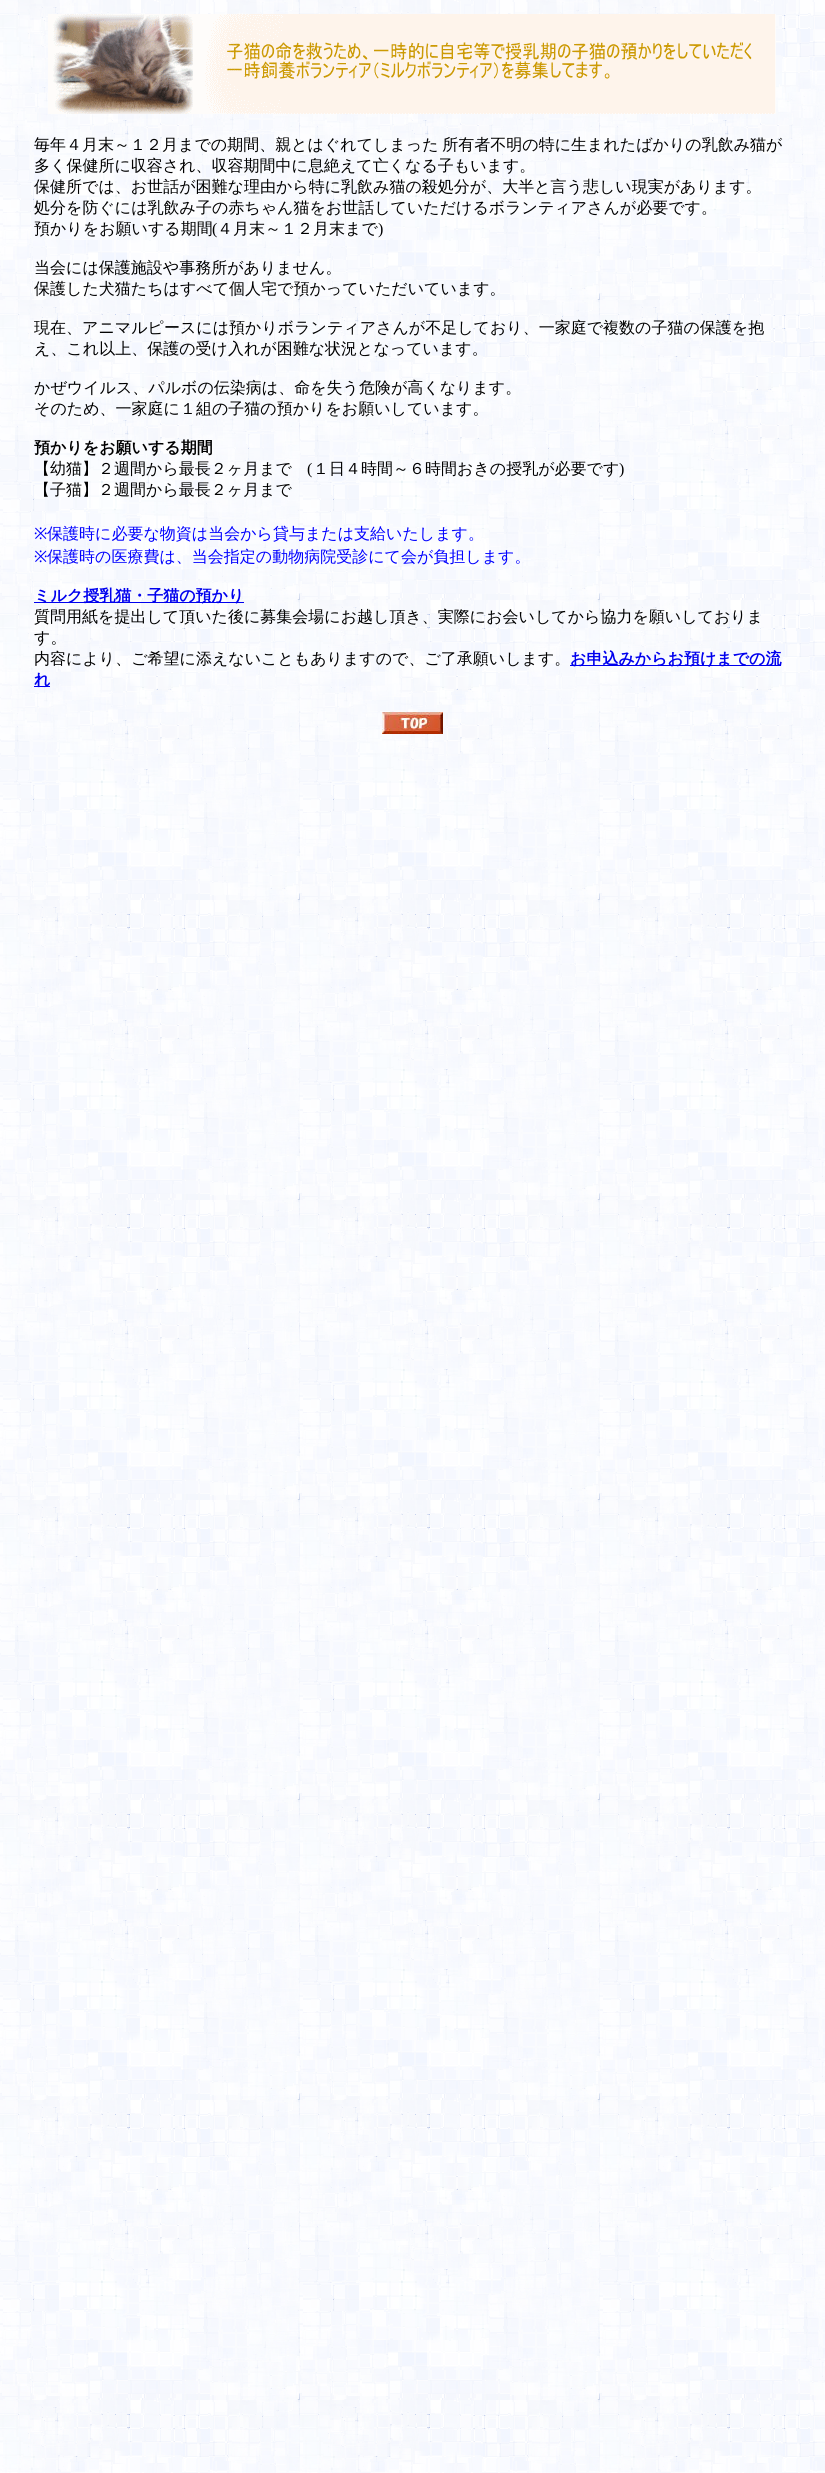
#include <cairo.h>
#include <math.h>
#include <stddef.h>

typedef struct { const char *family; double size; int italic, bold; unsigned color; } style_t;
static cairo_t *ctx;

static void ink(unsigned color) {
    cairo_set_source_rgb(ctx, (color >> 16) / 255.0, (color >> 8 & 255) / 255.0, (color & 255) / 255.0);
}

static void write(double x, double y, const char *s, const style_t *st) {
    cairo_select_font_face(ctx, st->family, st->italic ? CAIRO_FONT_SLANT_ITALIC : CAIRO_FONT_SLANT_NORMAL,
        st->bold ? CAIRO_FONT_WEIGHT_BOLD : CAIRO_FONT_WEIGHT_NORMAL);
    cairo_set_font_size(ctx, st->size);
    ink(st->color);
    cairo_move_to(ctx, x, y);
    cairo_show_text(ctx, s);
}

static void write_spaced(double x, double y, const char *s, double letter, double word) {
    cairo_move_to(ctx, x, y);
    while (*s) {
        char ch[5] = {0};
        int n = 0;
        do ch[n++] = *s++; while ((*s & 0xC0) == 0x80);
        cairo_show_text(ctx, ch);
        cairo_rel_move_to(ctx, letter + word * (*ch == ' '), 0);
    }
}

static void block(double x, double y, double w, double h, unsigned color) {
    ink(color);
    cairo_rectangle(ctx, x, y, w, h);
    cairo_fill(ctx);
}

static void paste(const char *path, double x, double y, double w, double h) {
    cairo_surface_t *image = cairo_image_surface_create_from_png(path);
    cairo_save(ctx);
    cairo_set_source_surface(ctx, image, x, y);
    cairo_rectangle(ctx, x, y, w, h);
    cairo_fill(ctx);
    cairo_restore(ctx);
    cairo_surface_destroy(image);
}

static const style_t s1 = {"WenQuanYi Zen Hei Medium", 16, 0, 0, 0x000000};
static const style_t s2 = {"Liberation Serif", 16, 0, 0, 0x000000};
static const style_t s3 = {"WenQuanYi Zen Hei", 16, 0, 1, 0x000000};
static const style_t s4 = {"Noto Sans", 16, 0, 0, 0x0000ff};
static const style_t s5 = {"WenQuanYi Zen Hei Medium", 16, 0, 0, 0x0000ff};
static const style_t s6 = {"WenQuanYi Zen Hei", 16, 0, 1, 0x0000ee};

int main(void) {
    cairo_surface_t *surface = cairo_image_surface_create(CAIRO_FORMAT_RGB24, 825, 2473);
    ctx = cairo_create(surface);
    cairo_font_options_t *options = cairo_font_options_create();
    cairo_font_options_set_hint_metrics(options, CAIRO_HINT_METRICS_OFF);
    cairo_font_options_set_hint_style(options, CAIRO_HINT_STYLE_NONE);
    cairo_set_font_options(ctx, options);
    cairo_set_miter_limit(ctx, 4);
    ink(0xffffff);
    cairo_paint(ctx);
    paste("pic1.png", 0, 0, 825, 2473);
    paste("pic2.png", 48, 14, 728, 100);
    cairo_select_font_face(ctx, "WenQuanYi Zen Hei Medium", CAIRO_FONT_SLANT_NORMAL, CAIRO_FONT_WEIGHT_NORMAL);
    cairo_set_font_size(ctx, 16);
    ink(0x000000);
    write_spaced(34, 150, "毎年４月末～１２月までの期間、親とはぐれてしまった 所有者不明の特に生まれたばかりの乳飲み猫が", 0, -1);
    write(34, 171, "多く保健所に収容され、収容期間中に息絶えて亡くなる子もいます。", &s1);
    write(34, 192, "保健所では、お世話が困難な理由から特に乳飲み猫の殺処分が、大半と言う悲しい現実があります。", &s1);
    write(34, 213, "処分を防ぐには乳飲み子の赤ちゃん猫をお世話していただけるボランティアさんが必要です。", &s1);
    write(34, 234, "預かりをお願いする期間", &s1);
    write(212, 234, "(", &s2);
    write(217, 234, "４月末～１２月末まで", &s1);
    write(378, 234, ")", &s2);
    write(34, 273, "当会には保護施設や事務所がありません。", &s1);
    write(34, 294, "保護した犬猫たちはすべて個人宅で預かっていただいています。", &s1);
    write(34, 333, "現在、アニマルピースには預かりボランティアさんが不足しており、一家庭で複数の子猫の保護を抱", &s1);
    write(34, 354, "え、これ以上、保護の受け入れが困難な状況となっています。", &s1);
    write(34, 393, "かぜウイルス、パルボの伝染病は、命を失う危険が高くなります。", &s1);
    write(34, 414, "そのため、一家庭に１組の子猫の預かりをお願いしています。", &s1);
    write(34, 453, "預かりをお願いする期間", &s3);
    write(34, 474, "【幼猫】２週間から最長２ヶ月まで", &s1);
    write(307, 474, "(", &s2);
    write(313, 474, "１日４時間～６時間おきの授乳が必要です", &s1);
    write(619, 474, ")", &s2);
    write(34, 495, "【子猫】２週間から最長２ヶ月まで", &s1);
    write(34, 539, "※", &s4);
    write(47, 539, "保護時に必要な物資は当会から貸与または支給いたします。", &s5);
    write(34, 562, "※", &s4);
    write(47, 562, "保護時の医療費は、当会指定の動物病院受診にて会が負担します。", &s5);
    block(34, 602, 210, 1, 0x0000ee);
    write(34, 601, "ミルク授乳猫・子猫の預かり", &s6);
    write(34, 622, "質問用紙を提出して頂いた後に募集会場にお越し頂き、実際にお会いしてから協力を願いしておりま", &s1);
    write(34, 643, "す。", &s1);
    write(34, 664, "内容により、ご希望に添えないこともありますので、ご了承願いします。", &s1);
    block(570, 665, 211, 1, 0x0000ee);
    write(570, 664, "お申込みからお預けまでの流", &s6);
    block(34, 686, 16, 1, 0x0000ee);
    write(34, 685, "れ", &s6);
    paste("pic3.png", 382, 712, 61, 22);
    cairo_surface_write_to_png(surface, "screenshot.png");
    cairo_font_options_destroy(options);
    cairo_destroy(ctx);
    cairo_surface_destroy(surface);
    return 0;
}
